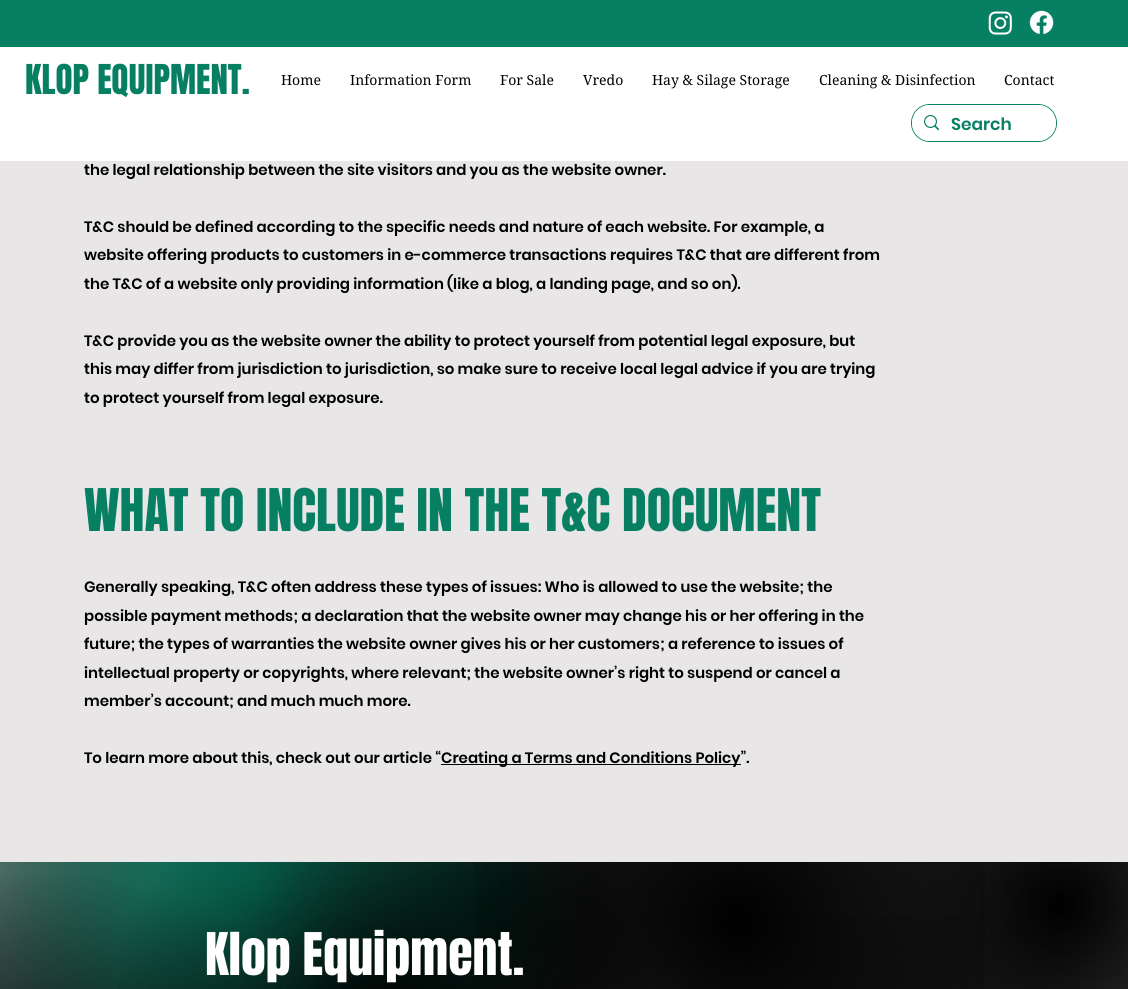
#include <cairo.h>
#include <math.h>
#include <stddef.h>

typedef struct { const char *family; double size; int italic, bold; unsigned color; } style_t;
static cairo_t *ctx;

static void ink(unsigned color) {
    cairo_set_source_rgb(ctx, (color >> 16) / 255.0, (color >> 8 & 255) / 255.0, (color & 255) / 255.0);
}

static void write(double x, double y, const char *s, const style_t *st) {
    cairo_select_font_face(ctx, st->family, st->italic ? CAIRO_FONT_SLANT_ITALIC : CAIRO_FONT_SLANT_NORMAL,
        st->bold ? CAIRO_FONT_WEIGHT_BOLD : CAIRO_FONT_WEIGHT_NORMAL);
    cairo_set_font_size(ctx, st->size);
    ink(st->color);
    cairo_move_to(ctx, x, y);
    cairo_show_text(ctx, s);
}

static void block(double x, double y, double w, double h, unsigned color) {
    ink(color);
    cairo_rectangle(ctx, x, y, w, h);
    cairo_fill(ctx);
}

static void round_path(double x, double y, double w, double h, double r) {
    cairo_new_sub_path(ctx);
    cairo_arc(ctx, x + w - r, y + h - r, r, 0, M_PI / 2);
    cairo_arc(ctx, x + r, y + h - r, r, M_PI / 2, M_PI);
    cairo_arc(ctx, x + r, y + r, r, M_PI, 1.5 * M_PI);
    cairo_arc(ctx, x + w - r, y + r, r, 1.5 * M_PI, 2 * M_PI);
    cairo_close_path(ctx);
}

static void paste(const char *path, double x, double y, double w, double h) {
    cairo_surface_t *image = cairo_image_surface_create_from_png(path);
    cairo_save(ctx);
    cairo_set_source_surface(ctx, image, x, y);
    cairo_rectangle(ctx, x, y, w, h);
    cairo_fill(ctx);
    cairo_restore(ctx);
    cairo_surface_destroy(image);
}

static const style_t s1 = {"Anton", 35, 0, 0, 0x077f63};
static const style_t s2 = {"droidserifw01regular", 14, 0, 0, 0x000000};
static const style_t s3 = {"Poppins SemiBold", 17, 0, 0, 0x077f63};
static const style_t s4 = {"Poppins SemiBold", 15, 0, 0, 0x000000};
static const style_t s5 = {"Anton", 50, 0, 0, 0x077f63};
static const style_t s6 = {"Anton", 50, 0, 0, 0xffffff};

int main(void) {
    cairo_surface_t *surface = cairo_image_surface_create(CAIRO_FORMAT_RGB24, 1128, 989);
    ctx = cairo_create(surface);
    cairo_font_options_t *options = cairo_font_options_create();
    cairo_font_options_set_hint_metrics(options, CAIRO_HINT_METRICS_OFF);
    cairo_font_options_set_hint_style(options, CAIRO_HINT_STYLE_NONE);
    cairo_set_font_options(ctx, options);
    cairo_set_miter_limit(ctx, 4);
    cairo_pattern_t *gradient;
    ink(0xffffff);
    cairo_paint(ctx);
    block(0, 0, 1128, 47, 0x077f63);
    paste("pic1.png", 988, 11, 24, 24);
    paste("pic2.png", 1029, 10, 25, 25);
    write(25, 94, "KLOP EQUIPMENT.", &s1);
    write(281, 85, "Home", &s2);
    write(350, 85, "Information Form", &s2);
    write(500, 85, "For Sale", &s2);
    write(583, 85, "Vredo", &s2);
    write(652, 85, "Hay & Silage Storage", &s2);
    write(819, 85, "Cleaning & Disinfection", &s2);
    write(1004, 85, "Contact", &s2);
    round_path(911.5, 104.5, 145, 37, 18.5);
    ink(0x077f63);
    cairo_set_line_width(ctx, 1);
    cairo_stroke(ctx);
    ink(0xffffff);
    round_path(912, 105, 144, 36, 18);
    cairo_fill(ctx);
    paste("pic3.png", 924, 115, 15, 16);
    write(951, 130, "Search", &s3);
    block(0, 161, 1128, 702, 0xe8e6e6);
    write(84, 175, "the legal relationship between the site visitors and you as the website owner.", &s4);
    write(84, 232, "T&C should be defined according to the specific needs and nature of each website. For example, a", &s4);
    write(84, 260, "website offering products to customers in e-commerce transactions requires T&C that are different from", &s4);
    write(84, 289, "the T&C of a website only providing information (like a blog, a landing page, and so on).", &s4);
    write(84, 346, "T&C provide you as the website owner the ability to protect yourself from potential legal exposure, but", &s4);
    write(84, 374, "this may differ from jurisdiction to jurisdiction, so make sure to receive local legal advice if you are trying", &s4);
    write(84, 403, "to protect yourself from legal exposure.", &s4);
    write(84, 531, "WHAT TO INCLUDE IN THE T&C DOCUMENT", &s5);
    write(84, 592, "Generally speaking, T&C often address these types of issues: Who is allowed to use the website; the", &s4);
    write(84, 621, "possible payment methods; a declaration that the website owner may change his or her offering in the", &s4);
    write(84, 649, "future; the types of warranties the website owner gives his or her customers; a reference to issues of", &s4);
    write(84, 678, "intellectual property or copyrights, where relevant; the website owner’s right to suspend or cancel a", &s4);
    write(84, 706, "member’s account; and much much more.", &s4);
    write(84, 763, "To learn more about this, check out our article “", &s4);
    block(441, 764, 300, 1, 0x000000);
    write(441, 763, "Creating a Terms and Conditions Policy”.", &s4);
    gradient = cairo_pattern_create_radial(552, 1084, 0, 552, 1084, 619);
    cairo_pattern_add_color_stop_rgba(gradient, 0, 1, 1, 1, 1);
    cairo_pattern_add_color_stop_rgba(gradient, 1, 1, 1, 1, 0);
    cairo_set_source(ctx, gradient);
    cairo_pattern_destroy(gradient);
    cairo_rectangle(ctx, 44, 862, 1016, 1);
    cairo_fill(ctx);
    gradient = cairo_pattern_create_radial(1060, 905, 0, 1060, 905, 1135);
    cairo_pattern_add_color_stop_rgba(gradient, 0, 0, 0, 0, 1);
    cairo_pattern_add_color_stop_rgba(gradient, 0.7, 0, 0, 0, 0);
    cairo_set_source(ctx, gradient);
    cairo_pattern_destroy(gradient);
    cairo_rectangle(ctx, 284, 862, 844, 127);
    cairo_fill(ctx);
    gradient = cairo_pattern_create_radial(21, 1015, 0, 21, 1015, 1146);
    cairo_pattern_add_color_stop_rgba(gradient, 0, 0.78, 0.78, 0.78, 1);
    cairo_pattern_add_color_stop_rgba(gradient, 0.7, 0.78, 0.78, 0.78, 0);
    cairo_set_source(ctx, gradient);
    cairo_pattern_destroy(gradient);
    cairo_rectangle(ctx, 0, 862, 806, 127);
    cairo_fill(ctx);
    gradient = cairo_pattern_create_radial(216, 1153, 0, 216, 1153, 957);
    cairo_pattern_add_color_stop_rgba(gradient, 0, 0, 0, 0, 0.99);
    cairo_pattern_add_color_stop_rgba(gradient, 0.5, 0, 0, 0, 0);
    cairo_set_source(ctx, gradient);
    cairo_pattern_destroy(gradient);
    cairo_rectangle(ctx, 0, 862, 655, 127);
    cairo_fill(ctx);
    gradient = cairo_pattern_create_radial(480, 904, 0, 480, 904, 765);
    cairo_pattern_add_color_stop_rgba(gradient, 0, 0, 0, 0, 1);
    cairo_pattern_add_color_stop_rgba(gradient, 1, 0, 0, 0, 0);
    cairo_set_source(ctx, gradient);
    cairo_pattern_destroy(gradient);
    cairo_rectangle(ctx, 0, 862, 1128, 127);
    cairo_fill(ctx);
    gradient = cairo_pattern_create_radial(254, 883, 0, 254, 883, 973);
    cairo_pattern_add_color_stop_rgba(gradient, 0, 0.027, 0.498, 0.388, 1);
    cairo_pattern_add_color_stop_rgba(gradient, 0.35, 0.027, 0.498, 0.388, 0);
    cairo_set_source(ctx, gradient);
    cairo_pattern_destroy(gradient);
    cairo_rectangle(ctx, 0, 862, 587, 127);
    cairo_fill(ctx);
    gradient = cairo_pattern_create_radial(387, 1023, 0, 387, 1023, 795);
    cairo_pattern_add_color_stop_rgba(gradient, 0, 0, 0, 0, 1);
    cairo_pattern_add_color_stop_rgba(gradient, 0.35, 0, 0, 0, 0);
    cairo_set_source(ctx, gradient);
    cairo_pattern_destroy(gradient);
    cairo_rectangle(ctx, 118, 862, 525, 127);
    cairo_fill(ctx);
    gradient = cairo_pattern_create_radial(897, 1225, 0, 897, 1225, 967);
    cairo_pattern_add_color_stop_rgba(gradient, 0, 0, 0, 0, 1);
    cairo_pattern_add_color_stop_rgba(gradient, 0.35, 0, 0, 0, 0);
    cairo_set_source(ctx, gradient);
    cairo_pattern_destroy(gradient);
    cairo_rectangle(ctx, 687, 915, 393, 74);
    cairo_fill(ctx);
    gradient = cairo_pattern_create_radial(739, 921, 0, 739, 921, 836);
    cairo_pattern_add_color_stop_rgba(gradient, 0, 0, 0, 0, 1);
    cairo_pattern_add_color_stop_rgba(gradient, 0.35, 0, 0, 0, 0);
    cairo_set_source(ctx, gradient);
    cairo_pattern_destroy(gradient);
    cairo_rectangle(ctx, 474, 862, 511, 127);
    cairo_fill(ctx);
    gradient = cairo_pattern_create_radial(34, 1277, 0, 34, 1277, 1170);
    cairo_pattern_add_color_stop_rgba(gradient, 0, 0, 0, 0, 1);
    cairo_pattern_add_color_stop_rgba(gradient, 0.35, 0, 0, 0, 0);
    cairo_set_source(ctx, gradient);
    cairo_pattern_destroy(gradient);
    cairo_rectangle(ctx, 0, 878, 282, 111);
    cairo_fill(ctx);
    write(205, 975, "Klop Equipment.", &s6);
    cairo_surface_write_to_png(surface, "screenshot.png");
    cairo_font_options_destroy(options);
    cairo_destroy(ctx);
    cairo_surface_destroy(surface);
    return 0;
}
